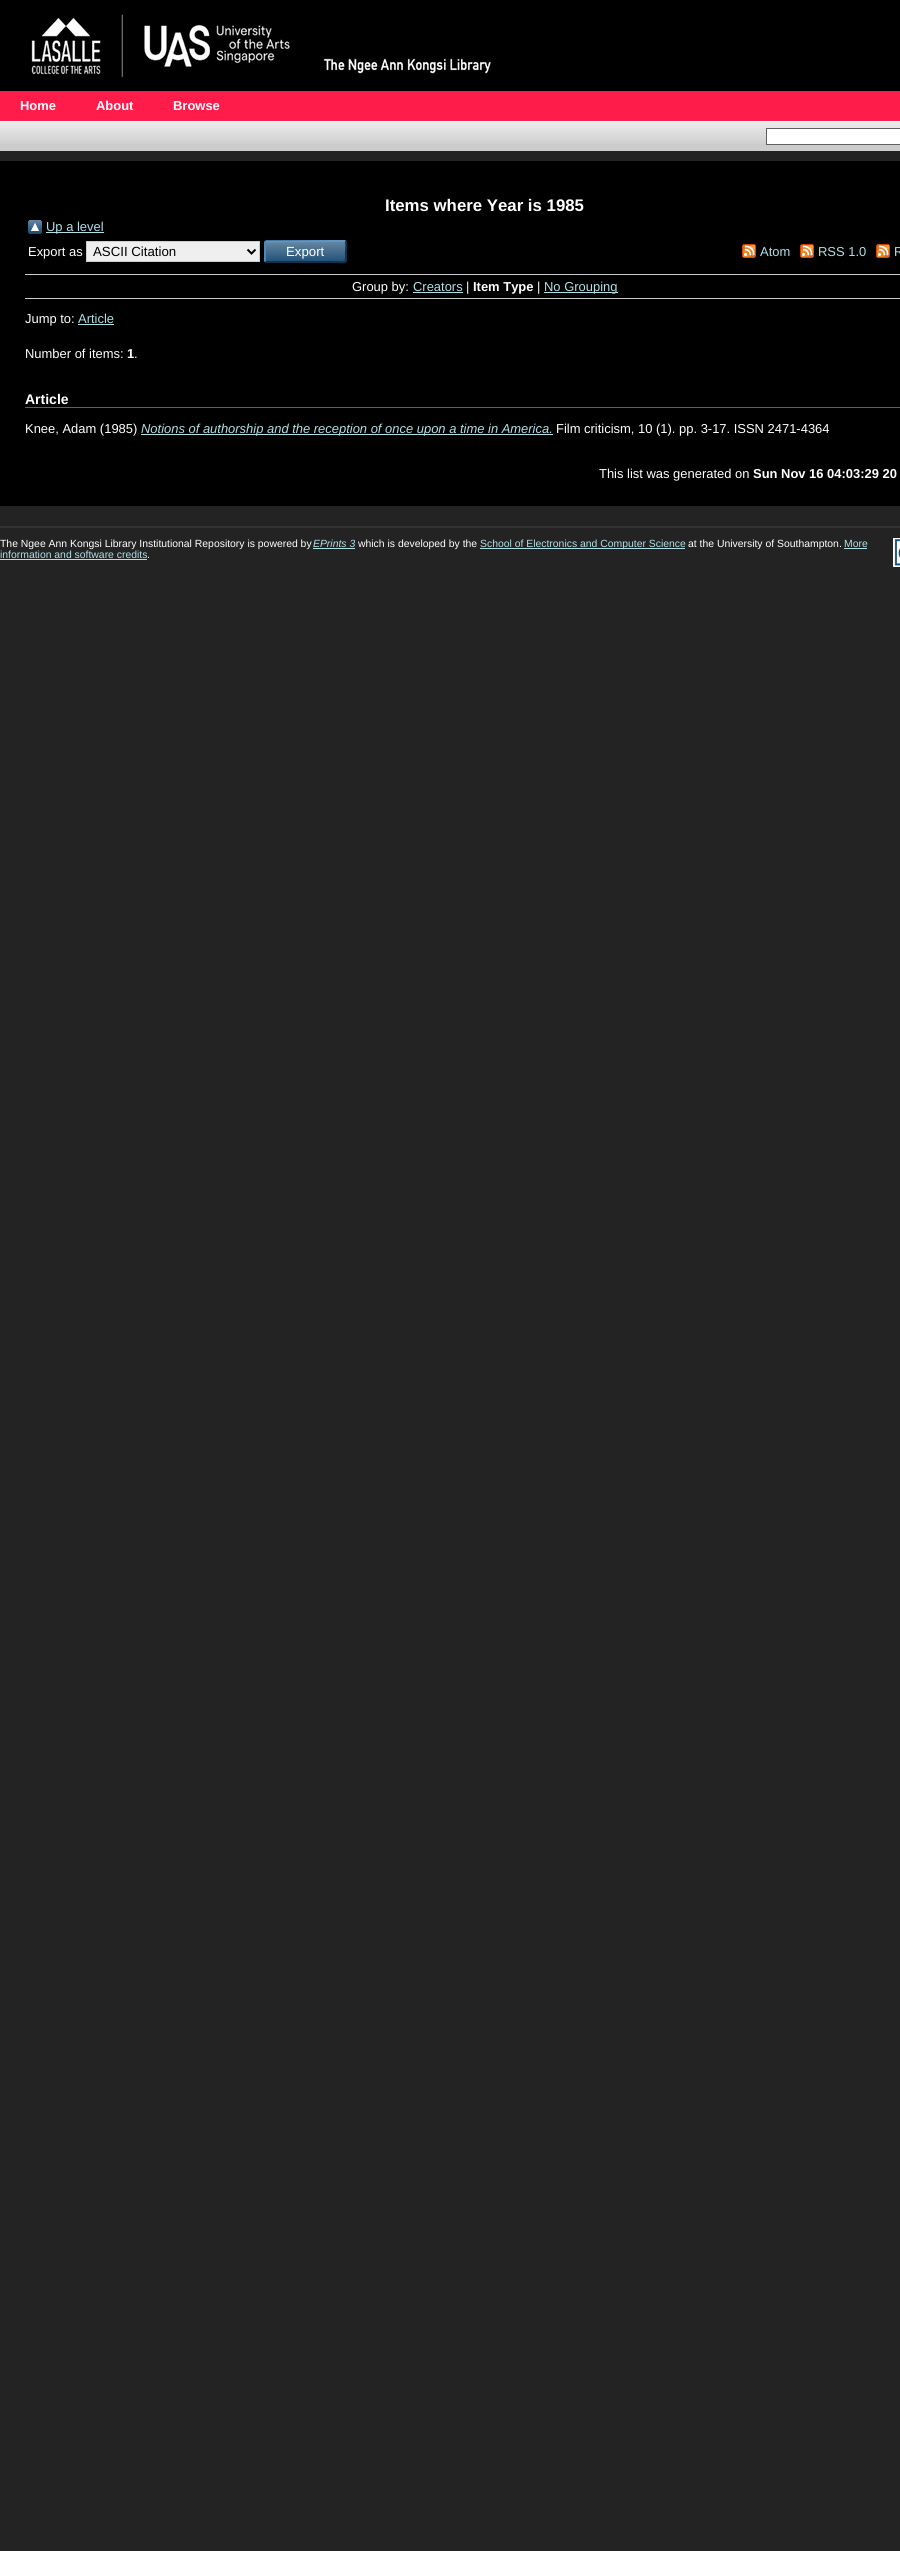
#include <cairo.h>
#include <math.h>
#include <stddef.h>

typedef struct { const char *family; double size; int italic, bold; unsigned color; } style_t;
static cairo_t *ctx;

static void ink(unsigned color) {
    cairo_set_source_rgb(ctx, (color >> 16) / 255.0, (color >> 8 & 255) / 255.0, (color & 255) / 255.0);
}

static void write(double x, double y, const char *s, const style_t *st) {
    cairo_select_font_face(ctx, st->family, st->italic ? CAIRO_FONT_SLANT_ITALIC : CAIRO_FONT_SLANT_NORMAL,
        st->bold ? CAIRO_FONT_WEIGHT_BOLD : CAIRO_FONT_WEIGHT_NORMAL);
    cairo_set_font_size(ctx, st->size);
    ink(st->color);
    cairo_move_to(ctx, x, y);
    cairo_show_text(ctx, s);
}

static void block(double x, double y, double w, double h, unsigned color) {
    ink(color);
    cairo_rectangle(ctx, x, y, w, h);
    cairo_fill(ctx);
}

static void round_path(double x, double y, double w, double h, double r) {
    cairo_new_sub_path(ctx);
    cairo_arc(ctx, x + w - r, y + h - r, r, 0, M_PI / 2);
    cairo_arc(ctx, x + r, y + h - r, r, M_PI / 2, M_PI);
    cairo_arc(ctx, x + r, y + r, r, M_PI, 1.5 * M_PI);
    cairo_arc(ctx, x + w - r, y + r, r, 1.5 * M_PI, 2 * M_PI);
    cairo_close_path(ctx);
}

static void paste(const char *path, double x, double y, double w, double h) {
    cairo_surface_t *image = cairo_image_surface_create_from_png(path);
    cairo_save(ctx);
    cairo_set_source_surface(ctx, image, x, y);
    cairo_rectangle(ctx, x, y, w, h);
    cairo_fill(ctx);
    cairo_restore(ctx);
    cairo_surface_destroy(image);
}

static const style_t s1 = {"Liberation Sans", 12.95, 0, 1, 0xffffff};
static const style_t s2 = {"Liberation Sans", 16.8, 0, 1, 0xffffff};
static const style_t s3 = {"Liberation Sans", 12.95, 0, 0, 0xb0e0e6};
static const style_t s4 = {"Liberation Sans", 12.95, 0, 0, 0xffffff};
static const style_t s5 = {"Liberation Sans", 13.25, 0, 0, 0x000000};
static const style_t s6 = {"Liberation Sans", 13.25, 0, 0, 0xffffff};
static const style_t s7 = {"Liberation Sans", 14, 0, 1, 0xffffff};
static const style_t s8 = {"Liberation Sans", 12.95, 1, 0, 0xb0e0e6};
static const style_t s9 = {"Liberation Sans", 10.4, 0, 0, 0xffffff};
static const style_t s10 = {"Liberation Sans", 10.4, 1, 0, 0xb0e0e6};
static const style_t s11 = {"Liberation Sans", 10.4, 0, 0, 0xb0e0e6};

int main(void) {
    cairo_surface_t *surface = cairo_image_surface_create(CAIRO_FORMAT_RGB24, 900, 2551);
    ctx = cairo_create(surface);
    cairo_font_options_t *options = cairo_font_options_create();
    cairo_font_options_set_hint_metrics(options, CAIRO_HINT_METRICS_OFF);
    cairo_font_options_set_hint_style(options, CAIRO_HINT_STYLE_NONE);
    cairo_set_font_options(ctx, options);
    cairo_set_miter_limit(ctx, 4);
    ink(0x232323);
    cairo_paint(ctx);
    block(0, 0, 900, 91, 0x000000);
    paste("pic1.png", 31, 14, 460, 64);
    block(0, 91, 900, 30, 0xfe1c4a);
    block(0, 121, 900, 1, 0xffffff);
    write(20, 110, "Home", &s1);
    write(96, 110, "About", &s1);
    write(173, 110, "Browse", &s1);
    block(0, 122, 900, 29, 0xcccccc);
    paste("pic2.png", 0, 122, 900, 22);
    ink(0xffffff);
    cairo_rectangle(ctx, 766.5, 128.5, 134, 16);
    cairo_fill_preserve(ctx);
    ink(0x606060);
    cairo_set_line_width(ctx, 1);
    cairo_stroke(ctx);
    block(0, 161, 900, 345, 0x000000);
    write(385, 211, "Items where Year is 1985", &s2);
    paste("pic3.png", 28, 220, 14, 14);
    block(46, 232, 58, 1, 0xb0e0e6);
    write(46, 231, "Up a level", &s3);
    write(28, 256, "Export as", &s4);
    ink(0xefefef);
    cairo_rectangle(ctx, 86.5, 241.5, 173, 20);
    cairo_fill_preserve(ctx);
    ink(0xcccccc);
    cairo_stroke(ctx);
    cairo_new_path(ctx);
    cairo_move_to(ctx, 247.5, 249.5);
    cairo_line_to(ctx, 251.5, 253.5);
    cairo_line_to(ctx, 255.5, 249.5);
    ink(0x000000);
    cairo_set_line_width(ctx, 2);
    cairo_stroke(ctx);
    write(93, 256, "ASCII Citation", &s5);
    ink(0x1f4f76);
    round_path(264, 240, 83, 23, 3);
    cairo_fill(ctx);
    paste("pic4.png", 264, 242, 83, 19);
    cairo_new_path(ctx);
    cairo_move_to(ctx, 265.5, 241.5);
    cairo_line_to(ctx, 331, 241);
    cairo_line_to(ctx, 344, 241);
    cairo_line_to(ctx, 345.5, 241.5);
    ink(0x5b97c7);
    cairo_stroke(ctx);
    cairo_new_path(ctx);
    cairo_move_to(ctx, 345.5, 241.5);
    cairo_curve_to(ctx, 347, 243, 346, 249.5, 346, 251.5);
    cairo_curve_to(ctx, 346, 265.5, 347.5, 262, 331, 262);
    cairo_line_to(ctx, 267, 262);
    cairo_line_to(ctx, 265.5, 261.5);
    ink(0x13324a);
    cairo_stroke(ctx);
    cairo_new_path(ctx);
    cairo_move_to(ctx, 265.5, 261.5);
    cairo_curve_to(ctx, 265, 261, 265, 260.5, 265, 260);
    cairo_line_to(ctx, 265, 243);
    cairo_curve_to(ctx, 265, 242.5, 265, 242, 265.5, 241.5);
    ink(0x5287b3);
    cairo_stroke(ctx);
    write(286, 256, "Export", &s6);
    paste("pic5.png", 742, 244, 14, 14);
    write(760, 256, "Atom", &s3);
    paste("pic5.png", 800, 244, 14, 14);
    write(818, 256, "RSS 1.0", &s3);
    paste("pic5.png", 876, 244, 14, 14);
    write(894, 256, "R", &s3);
    block(25, 274, 875, 1, 0xcccccc);
    block(25, 298, 875, 1, 0xcccccc);
    write(352, 291, "Group by:", &s4);
    write(413, 291, "Creators", &s3);
    block(413, 292, 50, 1, 0xb0e0e6);
    write(466, 291, "|", &s4);
    write(473, 291, "Item Type", &s1);
    write(537, 291, "|", &s4);
    block(544, 292, 74, 1, 0xb0e0e6);
    write(544, 291, "No Grouping", &s3);
    write(25, 323, "Jump to:", &s4);
    write(78, 323, "Article", &s3);
    block(78, 324, 36, 1, 0xb0e0e6);
    write(25, 358, "Number of items:", &s4);
    write(127, 358, "1", &s1);
    write(134, 358, ".", &s4);
    block(25, 407, 875, 1, 0x606060);
    write(25, 404, "Article", &s7);
    write(25, 433, "Knee, Adam (1985)", &s4);
    block(141, 434, 412, 1, 0xb0e0e6);
    write(141, 433, "Notions of authorship and the reception of once upon a time in America.", &s8);
    write(556, 433, "Film criticism, 10 (1). pp. 3-17. ISSN 2471-4364", &s4);
    write(599, 478, "This list was generated on", &s4);
    write(753, 478, "Sun Nov 16 04:03:29 20", &s1);
    block(0, 526, 900, 2, 0x323232);
    write(0, 547, "The Ngee Ann Kongsi Library Institutional Repository is powered by", &s9);
    write(313, 547, "EPrints 3", &s10);
    block(313, 548, 42, 1, 0xb0e0e6);
    write(358, 547, "which is developed by the", &s9);
    block(480, 548, 205, 1, 0xb0e0e6);
    write(480, 547, "School of Electronics and Computer Science", &s11);
    write(688, 547, "at the University of Southampton.", &s9);
    write(844, 547, "More", &s11);
    block(844, 548, 23, 1, 0xb0e0e6);
    write(0, 558, "information and software credits", &s11);
    block(0, 559, 147, 1, 0xb0e0e6);
    write(147, 558, ".", &s9);
    paste("pic6.png", 893, 538, 7, 29);
    cairo_surface_write_to_png(surface, "screenshot.png");
    cairo_font_options_destroy(options);
    cairo_destroy(ctx);
    cairo_surface_destroy(surface);
    return 0;
}
